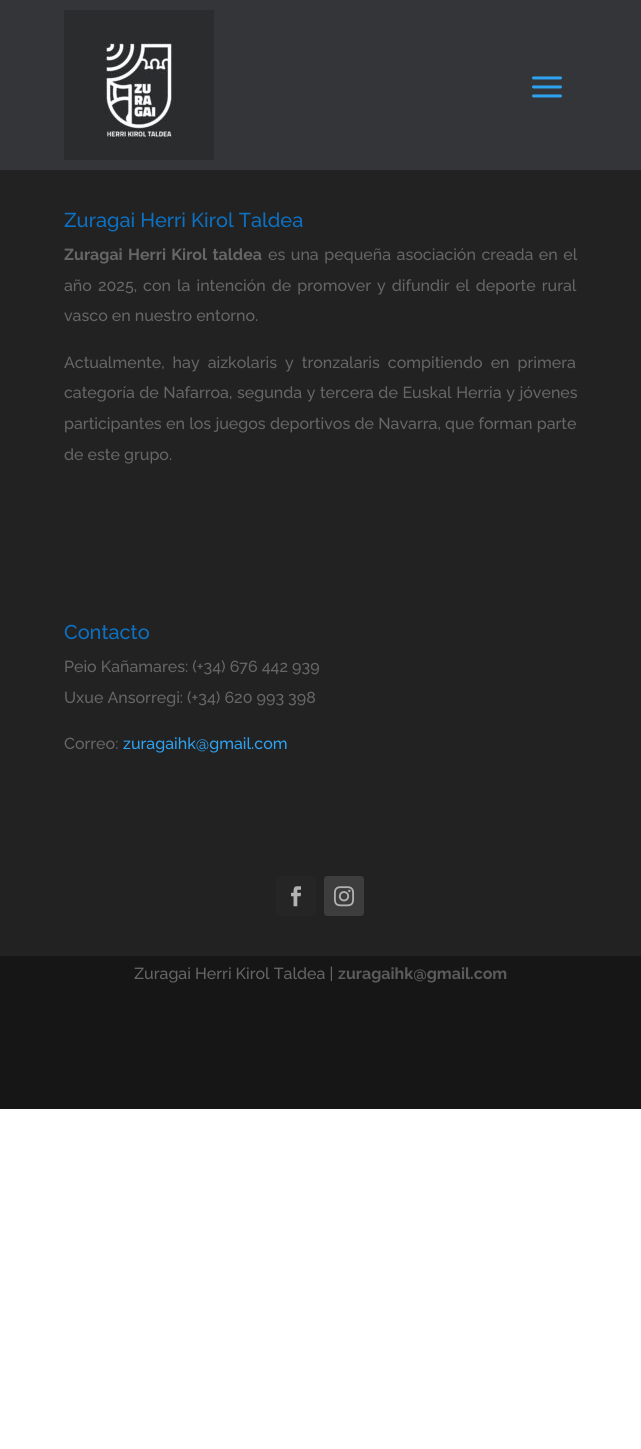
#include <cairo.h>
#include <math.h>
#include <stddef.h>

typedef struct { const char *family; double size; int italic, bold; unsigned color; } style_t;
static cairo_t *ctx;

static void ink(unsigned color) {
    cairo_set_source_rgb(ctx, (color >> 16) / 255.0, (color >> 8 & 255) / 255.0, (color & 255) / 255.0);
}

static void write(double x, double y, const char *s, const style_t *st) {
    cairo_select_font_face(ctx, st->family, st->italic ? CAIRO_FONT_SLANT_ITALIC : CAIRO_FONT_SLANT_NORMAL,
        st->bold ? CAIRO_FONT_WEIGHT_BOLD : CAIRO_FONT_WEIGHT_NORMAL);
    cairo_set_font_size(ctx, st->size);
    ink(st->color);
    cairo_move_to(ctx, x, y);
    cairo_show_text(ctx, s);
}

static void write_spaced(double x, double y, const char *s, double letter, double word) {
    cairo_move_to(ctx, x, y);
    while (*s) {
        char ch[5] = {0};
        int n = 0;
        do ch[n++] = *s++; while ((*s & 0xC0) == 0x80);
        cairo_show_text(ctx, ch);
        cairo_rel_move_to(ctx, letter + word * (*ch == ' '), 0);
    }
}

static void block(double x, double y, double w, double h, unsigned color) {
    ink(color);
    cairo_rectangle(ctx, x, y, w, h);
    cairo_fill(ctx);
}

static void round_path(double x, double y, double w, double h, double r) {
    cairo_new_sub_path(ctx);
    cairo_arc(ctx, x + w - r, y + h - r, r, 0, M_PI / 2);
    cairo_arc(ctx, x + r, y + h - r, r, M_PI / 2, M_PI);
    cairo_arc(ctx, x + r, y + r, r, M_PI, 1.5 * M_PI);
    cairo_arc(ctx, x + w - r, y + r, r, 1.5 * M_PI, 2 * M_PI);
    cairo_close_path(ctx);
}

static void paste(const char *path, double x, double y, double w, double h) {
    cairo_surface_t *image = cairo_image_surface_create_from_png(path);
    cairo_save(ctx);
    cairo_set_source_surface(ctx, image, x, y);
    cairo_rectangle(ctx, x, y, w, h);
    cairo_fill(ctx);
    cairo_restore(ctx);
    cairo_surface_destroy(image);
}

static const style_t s1 = {"Raleway Thin", 20, 0, 0, 0x0c71c3};
static const style_t s2 = {"Raleway Thin", 16, 0, 0, 0x666666};
static const style_t s3 = {"Raleway Thin", 16, 0, 0, 0x2ea3f2};
static const style_t s4 = {"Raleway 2 Thin", 16, 0, 0, 0x5b5b5b};

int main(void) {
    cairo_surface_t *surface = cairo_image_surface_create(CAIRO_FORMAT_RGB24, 641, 1449);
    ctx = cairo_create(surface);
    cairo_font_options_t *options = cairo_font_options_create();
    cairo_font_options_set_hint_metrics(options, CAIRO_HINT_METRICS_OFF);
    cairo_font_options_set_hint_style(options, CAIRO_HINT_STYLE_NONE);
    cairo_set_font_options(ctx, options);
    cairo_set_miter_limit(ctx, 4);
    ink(0xffffff);
    cairo_paint(ctx);
    block(0, 0, 641, 170, 0x343538);
    paste("pic1.png", 64, 10, 150, 150);
    paste("pic2.png", 532, 76, 30, 22);
    block(0, 170, 641, 786, 0x222222);
    write(64, 227, "Zuragai Herri Kirol Taldea", &s1);
    cairo_select_font_face(ctx, "Raleway 2 Thin", CAIRO_FONT_SLANT_NORMAL, CAIRO_FONT_WEIGHT_NORMAL);
    cairo_set_font_size(ctx, 16);
    ink(0x666666);
    write_spaced(64, 260, "Zuragai Herri Kirol taldea", 0, 1.5);
    cairo_select_font_face(ctx, "Raleway Thin", CAIRO_FONT_SLANT_NORMAL, CAIRO_FONT_WEIGHT_NORMAL);
    write_spaced(268, 260, "es una pequeña asociación creada en el", 0, 1.5);
    write_spaced(64, 291, "año 2025, con la intención de promover y difundir el deporte rural", 0, 2);
    write(64, 321, "vasco en nuestro entorno.", &s2);
    write_spaced(64, 368, "Actualmente, hay aizkolaris y tronzalaris compitiendo en primera", 0, 4);
    write_spaced(64, 398, "categoría de Nafarroa, segunda y tercera de Euskal Herria y jóvenes", 0, 0.5);
    write_spaced(64, 429, "participantes en los juegos deportivos de Navarra, que forman parte", 0, 0.25);
    write(64, 460, "de este grupo.", &s2);
    write(64, 639, "Contacto", &s1);
    write(64, 672, "Peio Kañamares: (+34) 676 442 939", &s2);
    write(64, 703, "Uxue Ansorregi: (+34) 620 993 398", &s2);
    write(64, 749, "Correo:", &s2);
    write(123, 749, "zuragaihk@gmail.com", &s3);
    ink(0x252525);
    round_path(276, 876, 40, 40, 3);
    cairo_fill(ctx);
    paste("pic3.png", 291, 886, 10, 21);
    ink(0x3d3d3d);
    round_path(324, 876, 40, 40, 3);
    cairo_fill(ctx);
    paste("pic4.png", 334, 886, 20, 21);
    block(0, 956, 641, 153, 0x161616);
    write(134, 979, "Zuragai Herri Kirol Taldea |", &s2);
    write(338, 979, "zuragaihk@gmail.com", &s4);
    cairo_surface_write_to_png(surface, "screenshot.png");
    cairo_font_options_destroy(options);
    cairo_destroy(ctx);
    cairo_surface_destroy(surface);
    return 0;
}
